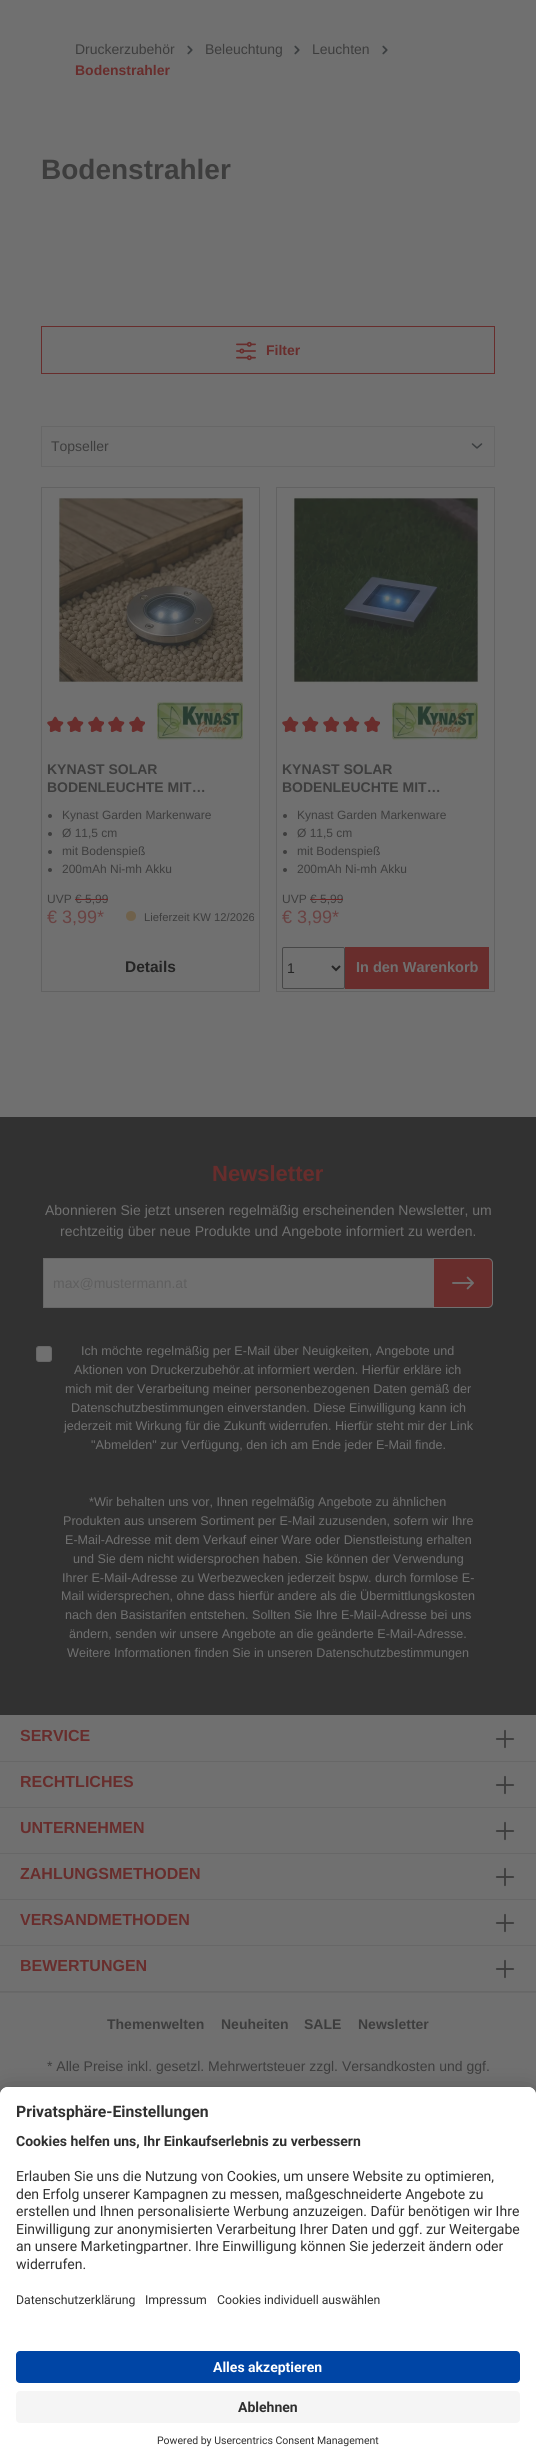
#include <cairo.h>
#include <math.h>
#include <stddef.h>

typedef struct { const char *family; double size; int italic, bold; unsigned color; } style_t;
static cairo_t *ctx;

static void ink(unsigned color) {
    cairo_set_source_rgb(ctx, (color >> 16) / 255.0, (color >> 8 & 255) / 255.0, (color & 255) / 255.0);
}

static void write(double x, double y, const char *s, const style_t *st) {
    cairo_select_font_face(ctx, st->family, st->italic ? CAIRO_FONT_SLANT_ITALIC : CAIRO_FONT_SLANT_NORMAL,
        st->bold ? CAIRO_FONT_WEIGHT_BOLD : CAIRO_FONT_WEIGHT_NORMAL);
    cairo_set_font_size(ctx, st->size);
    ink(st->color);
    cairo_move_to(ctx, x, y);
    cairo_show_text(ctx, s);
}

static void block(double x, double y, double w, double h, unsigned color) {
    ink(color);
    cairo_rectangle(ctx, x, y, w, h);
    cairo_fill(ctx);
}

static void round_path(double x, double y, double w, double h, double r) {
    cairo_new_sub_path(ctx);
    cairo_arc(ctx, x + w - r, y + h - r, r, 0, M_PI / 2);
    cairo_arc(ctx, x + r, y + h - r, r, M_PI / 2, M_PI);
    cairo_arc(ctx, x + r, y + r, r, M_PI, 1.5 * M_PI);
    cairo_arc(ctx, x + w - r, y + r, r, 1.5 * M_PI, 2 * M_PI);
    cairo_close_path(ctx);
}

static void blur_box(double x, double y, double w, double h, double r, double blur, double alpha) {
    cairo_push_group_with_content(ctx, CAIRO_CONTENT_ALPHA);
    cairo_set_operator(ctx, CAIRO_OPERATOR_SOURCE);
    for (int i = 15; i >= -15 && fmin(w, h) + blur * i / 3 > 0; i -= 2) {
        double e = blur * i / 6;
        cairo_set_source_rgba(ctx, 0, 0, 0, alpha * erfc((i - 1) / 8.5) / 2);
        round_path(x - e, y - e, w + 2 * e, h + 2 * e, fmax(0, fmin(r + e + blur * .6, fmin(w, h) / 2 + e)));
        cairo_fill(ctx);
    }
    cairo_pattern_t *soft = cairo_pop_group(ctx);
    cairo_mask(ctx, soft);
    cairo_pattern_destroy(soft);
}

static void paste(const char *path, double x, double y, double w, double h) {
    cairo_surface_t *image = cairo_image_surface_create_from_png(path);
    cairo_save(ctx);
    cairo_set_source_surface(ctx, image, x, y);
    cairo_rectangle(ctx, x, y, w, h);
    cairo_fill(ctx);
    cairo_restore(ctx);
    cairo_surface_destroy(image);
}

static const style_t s1 = {"Liberation Sans", 14, 0, 0, 0x3d3d3d};
static const style_t s2 = {"Liberation Sans", 14, 0, 1, 0x682d2c};
static const style_t s3 = {"Liberation Sans", 28, 0, 1, 0x3d3d3d};
static const style_t s4 = {"Liberation Sans", 14, 0, 1, 0x3d3d3d};
static const style_t s5 = {"Liberation Sans", 12, 0, 0, 0x3d3d3d};
static const style_t s6 = {"Liberation Sans", 18, 0, 0, 0x694242};
static const style_t s7 = {"Liberation Sans", 11.25, 0, 0, 0x3d3d3d};
static const style_t s8 = {"Liberation Sans", 15.5, 0, 1, 0x242424};
static const style_t s9 = {"Liberation Sans", 14, 0, 0, 0x242424};
static const style_t s10 = {"Liberation Sans", 14.5, 0, 1, 0x707070};
static const style_t s11 = {"Liberation Sans", 22, 0, 1, 0x682d2c};
static const style_t s12 = {"Liberation Sans", 14, 0, 0, 0x707070};
static const style_t s13 = {"Liberation Sans", 14, 0, 0, 0x5e5e5e};
static const style_t s14 = {"Liberation Sans", 12.6, 0, 0, 0x707070};
static const style_t s15 = {"Liberation Sans", 16, 0, 1, 0x682d2c};
static const style_t s16 = {"Roboto", 15.75, 0, 1, 0x303030};
static const style_t s17 = {"Roboto", 14, 0, 1, 0x303030};
static const style_t s18 = {"Roboto", 14, 0, 0, 0x303030};
static const style_t s19 = {"Roboto", 12.25, 0, 0, 0x303030};
static const style_t s20 = {"Roboto", 14, 0, 1, 0xffffff};
static const style_t s21 = {"Roboto", 10.5, 0, 0, 0x303030};

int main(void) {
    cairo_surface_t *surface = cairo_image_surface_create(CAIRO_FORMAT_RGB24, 536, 2463);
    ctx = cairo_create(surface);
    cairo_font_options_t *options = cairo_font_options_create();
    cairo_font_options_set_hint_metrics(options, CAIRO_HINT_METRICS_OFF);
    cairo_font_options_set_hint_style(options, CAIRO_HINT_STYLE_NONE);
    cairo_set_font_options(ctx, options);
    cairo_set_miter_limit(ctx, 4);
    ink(0x707070);
    cairo_paint(ctx);
    write(75, 54, "Druckerzubehör", &s1);
    paste("pic1.png", 187, 45, 6, 10);
    write(205, 54, "Beleuchtung", &s1);
    paste("pic1.png", 294, 45, 6, 10);
    write(312, 54, "Leuchten", &s1);
    paste("pic1.png", 382, 45, 6, 10);
    write(75, 75, "Bodenstrahler", &s2);
    write(41, 179, "Bodenstrahler", &s3);
    cairo_rectangle(ctx, 41.5, 326.5, 453, 47);
    ink(0x682d2c);
    cairo_set_line_width(ctx, 1);
    cairo_stroke(ctx);
    paste("pic2.png", 236, 341, 20, 20);
    write(266, 355, "Filter", &s2);
    cairo_new_path(ctx);
    cairo_move_to(ctx, 472.5, 444);
    cairo_line_to(ctx, 477, 448);
    cairo_line_to(ctx, 481.5, 444);
    ink(0x3a3d3f);
    cairo_set_line_width(ctx, 1.5);
    cairo_set_line_cap(ctx, CAIRO_LINE_CAP_ROUND);
    cairo_set_line_join(ctx, CAIRO_LINE_JOIN_ROUND);
    cairo_stroke(ctx);
    cairo_rectangle(ctx, 41.5, 426.5, 453, 40);
    ink(0x676767);
    cairo_set_line_width(ctx, 1);
    cairo_set_line_cap(ctx, CAIRO_LINE_CAP_BUTT);
    cairo_set_line_join(ctx, CAIRO_LINE_JOIN_MITER);
    cairo_stroke(ctx);
    write(51, 451, "Topseller", &s1);
    cairo_rectangle(ctx, 41.5, 487.5, 218, 504);
    ink(0x626262);
    cairo_stroke(ctx);
    paste("pic3.png", 57, 497, 188, 187);
    paste("pic4.png", 47, 716, 17, 16);
    paste("pic4.png", 67, 716, 17, 16);
    paste("pic5.png", 88, 716, 16, 16);
    paste("pic4.png", 108, 716, 17, 16);
    paste("pic5.png", 129, 716, 16, 16);
    paste("pic6.png", 157, 700, 86, 41);
    write(47, 774, "KYNAST SOLAR", &s4);
    write(47, 792, "BODENLEUCHTE MIT…", &s4);
    cairo_new_path(ctx);
    cairo_arc(ctx, 50, 816, 2, 0, 2 * M_PI);
    cairo_fill(ctx);
    write(62, 819, "Kynast Garden Markenware", &s5);
    cairo_new_path(ctx);
    cairo_arc(ctx, 50, 834, 2, 0, 2 * M_PI);
    cairo_fill(ctx);
    write(62, 837, "Ø 11,5 cm", &s5);
    cairo_new_path(ctx);
    cairo_arc(ctx, 50, 852, 2, 0, 2 * M_PI);
    cairo_fill(ctx);
    write(62, 855, "mit Bodenspieß", &s5);
    cairo_new_path(ctx);
    cairo_arc(ctx, 50, 870, 2, 0, 2 * M_PI);
    cairo_fill(ctx);
    write(62, 873, "200mAh Ni-mh Akku", &s5);
    write(47, 903, "UVP € 5,99", &s5);
    block(75, 899, 33, 1, 0x702424);
    write(47, 923, "€ 3,99*", &s6);
    ink(0x6f614b);
    cairo_new_path(ctx);
    cairo_arc(ctx, 131, 916, 5, 0, 2 * M_PI);
    cairo_fill(ctx);
    write(144, 921, "Lieferzeit KW 12/2026", &s7);
    write(125, 972, "Details", &s8);
    cairo_rectangle(ctx, 276.5, 487.5, 218, 504);
    ink(0x626262);
    cairo_stroke(ctx);
    paste("pic7.png", 291, 496, 189, 188);
    paste("pic4.png", 282, 716, 17, 16);
    paste("pic4.png", 302, 716, 17, 16);
    paste("pic5.png", 323, 716, 16, 16);
    paste("pic4.png", 343, 716, 17, 16);
    paste("pic5.png", 364, 716, 16, 16);
    paste("pic6.png", 392, 700, 86, 41);
    write(282, 774, "KYNAST SOLAR", &s4);
    write(282, 792, "BODENLEUCHTE MIT…", &s4);
    cairo_new_path(ctx);
    cairo_arc(ctx, 285, 816, 2, 0, 2 * M_PI);
    cairo_fill(ctx);
    write(297, 819, "Kynast Garden Markenware", &s5);
    cairo_new_path(ctx);
    cairo_arc(ctx, 285, 834, 2, 0, 2 * M_PI);
    cairo_fill(ctx);
    write(297, 837, "Ø 11,5 cm", &s5);
    cairo_new_path(ctx);
    cairo_arc(ctx, 285, 852, 2, 0, 2 * M_PI);
    cairo_fill(ctx);
    write(297, 855, "mit Bodenspieß", &s5);
    cairo_new_path(ctx);
    cairo_arc(ctx, 285, 870, 2, 0, 2 * M_PI);
    cairo_fill(ctx);
    write(297, 873, "200mAh Ni-mh Akku", &s5);
    write(282, 903, "UVP € 5,99", &s5);
    block(310, 899, 33, 1, 0x702424);
    write(282, 923, "€ 3,99*", &s6);
    round_path(282.5, 947.5, 62, 41, 1.5);
    ink(0x474747);
    cairo_stroke(ctx);
    cairo_new_path(ctx);
    cairo_move_to(ctx, 332, 966);
    cairo_line_to(ctx, 336, 970);
    cairo_line_to(ctx, 340, 966);
    ink(0x242424);
    cairo_set_line_width(ctx, 2);
    cairo_stroke(ctx);
    write(287, 973, "1", &s9);
    block(345, 947, 144, 42, 0x682d2c);
    write(356, 972, "In den Warenkorb", &s10);
    block(0, 1117, 536, 598, 0x313131);
    write(212, 1181, "Newsletter", &s11);
    write(45, 1215, "Abonnieren Sie jetzt unseren regelmäßig erscheinenden Newsletter, um", &s12);
    write(60, 1236, "rechtzeitig über neue Produkte und Angebote informiert zu werden.", &s12);
    block(44, 1259, 389, 48, 0x707070);
    block(43, 1258, 390, 1, 0x676767);
    block(43, 1307, 390, 1, 0x676767);
    block(43, 1258, 1, 50, 0x676767);
    write(53, 1288, "max@mustermann.at", &s13);
    ink(0x682d2c);
    cairo_new_path(ctx);
    cairo_move_to(ctx, 433.5, 1258.5);
    cairo_line_to(ctx, 488, 1258.5);
    cairo_curve_to(ctx, 490.5, 1258.5, 492.5, 1260.5, 492.5, 1263);
    cairo_line_to(ctx, 492.5, 1303);
    cairo_curve_to(ctx, 492.5, 1305.5, 490.5, 1307.5, 488, 1307.5);
    cairo_line_to(ctx, 433.5, 1307.5);
    cairo_close_path(ctx);
    cairo_fill_preserve(ctx);
    ink(0x707070);
    cairo_set_line_width(ctx, 1);
    cairo_stroke(ctx);
    paste("pic8.png", 452, 1276, 22, 14);
    round_path(36.5, 1346.5, 15, 15, 2.5);
    cairo_fill_preserve(ctx);
    ink(0x676767);
    cairo_stroke(ctx);
    write(81, 1355, "Ich möchte regelmäßig per E-Mail über Neuigkeiten, Angebote und", &s14);
    write(74, 1374, "Aktionen von Druckerzubehör.at informiert werden. Hierfür erkläre ich", &s14);
    write(65, 1393, "mich mit der Verarbeitung meiner personenbezogenen Daten gemäß der", &s14);
    write(71, 1412, "Datenschutzbestimmungen einverstanden. Diese Einwilligung kann ich", &s14);
    write(64, 1430, "jederzeit mit Wirkung für die Zukunft widerrufen. Hierfür steht mir der Link", &s14);
    write(91, 1449, "\"Abmelden\" zur Verfügung, den ich am Ende jeder E-Mail finde.", &s14);
    write(89, 1506, "*Wir behalten uns vor, Ihnen regelmäßig Angebote zu ähnlichen", &s14);
    write(63, 1525, "Produkten aus unserem Sortiment per E-Mail zuzusenden, sofern wir Ihre", &s14);
    write(65, 1544, "E-Mail-Adresse mit dem Verkauf einer Ware oder Dienstleistung erhalten", &s14);
    write(73, 1563, "und Sie dem nicht widersprochen haben. Sie können der Verwendung", &s14);
    write(62, 1582, "Ihrer E-Mail-Adresse zu Werbezwecken jederzeit bspw. durch formlose E-", &s14);
    write(61, 1600, "Mail widersprechen, ohne dass hierfür andere als die Übermittlungskosten", &s14);
    write(65, 1619, "nach den Basistarifen entstehen. Sollten Sie Ihre E-Mail-Adresse bei uns", &s14);
    write(69, 1638, "ändern, senden wir unsere Angebote an die geänderte E-Mail-Adresse.", &s14);
    write(67, 1657, "Weitere Informationen finden Sie in unseren Datenschutzbestimmungen", &s14);
    block(0, 1761, 536, 1, 0x676767);
    write(20, 1741, "SERVICE", &s15);
    paste("pic9.png", 495, 1729, 20, 20);
    block(0, 1807, 536, 1, 0x676767);
    write(20, 1787, "RECHTLICHES", &s15);
    paste("pic9.png", 495, 1775, 20, 20);
    block(0, 1853, 536, 1, 0x676767);
    write(20, 1833, "UNTERNEHMEN", &s15);
    paste("pic9.png", 495, 1821, 20, 20);
    block(0, 1899, 536, 1, 0x676767);
    write(20, 1879, "ZAHLUNGSMETHODEN", &s15);
    paste("pic9.png", 495, 1867, 20, 20);
    block(0, 1945, 536, 1, 0x676767);
    write(20, 1925, "VERSANDMETHODEN", &s15);
    paste("pic9.png", 495, 1913, 20, 20);
    block(0, 1991, 536, 1, 0x676767);
    write(20, 1971, "BEWERTUNGEN", &s15);
    paste("pic9.png", 495, 1959, 20, 20);
    block(0, 1992, 536, 1, 0x696969);
    write(107, 2029, "Themenwelten", &s4);
    write(221, 2029, "Neuheiten", &s4);
    write(304, 2029, "SALE", &s4);
    write(358, 2029, "Newsletter", &s4);
    write(47, 2071, "* Alle Preise inkl. gesetzl. Mehrwertsteuer zzgl. Versandkosten und ggf.", &s1);
    ink(0x000000);
    blur_box(0, 2107, 536, 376, 8, 14, 0.3);
    blur_box(0, 2092, 536, 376, 8, 13, 0.22);
    ink(0xffffff);
    cairo_new_path(ctx);
    cairo_move_to(ctx, 8, 2087);
    cairo_line_to(ctx, 528, 2087);
    cairo_curve_to(ctx, 532.5, 2087, 536, 2090.5, 536, 2095);
    cairo_line_to(ctx, 536, 2463);
    cairo_line_to(ctx, 0, 2463);
    cairo_line_to(ctx, 0, 2095);
    cairo_curve_to(ctx, 0, 2090.5, 3.5, 2087, 8, 2087);
    cairo_close_path(ctx);
    cairo_fill(ctx);
    cairo_new_path(ctx);
    cairo_move_to(ctx, 8, 2087);
    cairo_line_to(ctx, 528, 2087);
    cairo_curve_to(ctx, 532.5, 2087, 536, 2090.5, 536, 2095);
    cairo_line_to(ctx, 536, 2339);
    cairo_line_to(ctx, 0, 2339);
    cairo_line_to(ctx, 0, 2095);
    cairo_curve_to(ctx, 0, 2090.5, 3.5, 2087, 8, 2087);
    cairo_close_path(ctx);
    cairo_fill(ctx);
    write(16, 2117, "Privatsphäre-Einstellungen", &s16);
    write(16, 2146, "Cookies helfen uns, Ihr Einkaufserlebnis zu verbessern", &s17);
    write(16, 2181, "Erlauben Sie uns die Nutzung von Cookies, um unsere Website zu optimieren,", &s18);
    write(16, 2199, "den Erfolg unserer Kampagnen zu messen, maßgeschneiderte Angebote zu", &s18);
    write(16, 2216, "erstellen und Ihnen personalisierte Werbung anzuzeigen. Dafür benötigen wir Ihre", &s18);
    write(16, 2234, "Einwilligung zur anonymisierten Verarbeitung Ihrer Daten und ggf. zur Weitergabe", &s18);
    write(16, 2251, "an unsere Marketingpartner. Ihre Einwilligung können Sie jederzeit ändern oder", &s18);
    write(16, 2269, "widerrufen.", &s18);
    write(16, 2304, "Datenschutzerklärung", &s19);
    write(145, 2304, "Impressum", &s19);
    write(217, 2304, "Cookies individuell auswählen", &s19);
    ink(0x0045a5);
    round_path(16, 2351, 504, 32, 4);
    cairo_fill(ctx);
    write(213, 2372, "Alles akzeptieren", &s20);
    ink(0xf5f5f5);
    round_path(16, 2391, 504, 32, 4);
    cairo_fill(ctx);
    write(238, 2412, "Ablehnen", &s17);
    write(157, 2444, "Powered by Usercentrics Consent Management", &s21);
    cairo_surface_write_to_png(surface, "screenshot.png");
    cairo_font_options_destroy(options);
    cairo_destroy(ctx);
    cairo_surface_destroy(surface);
    return 0;
}
